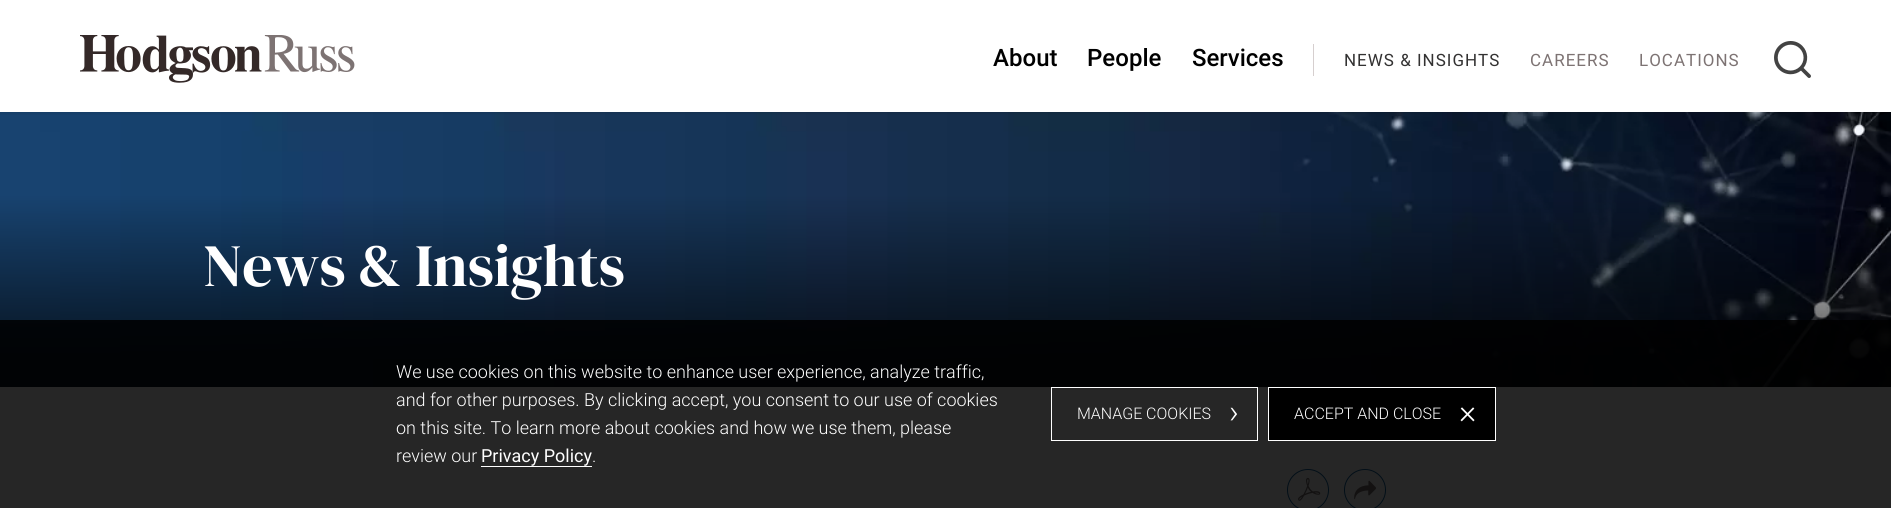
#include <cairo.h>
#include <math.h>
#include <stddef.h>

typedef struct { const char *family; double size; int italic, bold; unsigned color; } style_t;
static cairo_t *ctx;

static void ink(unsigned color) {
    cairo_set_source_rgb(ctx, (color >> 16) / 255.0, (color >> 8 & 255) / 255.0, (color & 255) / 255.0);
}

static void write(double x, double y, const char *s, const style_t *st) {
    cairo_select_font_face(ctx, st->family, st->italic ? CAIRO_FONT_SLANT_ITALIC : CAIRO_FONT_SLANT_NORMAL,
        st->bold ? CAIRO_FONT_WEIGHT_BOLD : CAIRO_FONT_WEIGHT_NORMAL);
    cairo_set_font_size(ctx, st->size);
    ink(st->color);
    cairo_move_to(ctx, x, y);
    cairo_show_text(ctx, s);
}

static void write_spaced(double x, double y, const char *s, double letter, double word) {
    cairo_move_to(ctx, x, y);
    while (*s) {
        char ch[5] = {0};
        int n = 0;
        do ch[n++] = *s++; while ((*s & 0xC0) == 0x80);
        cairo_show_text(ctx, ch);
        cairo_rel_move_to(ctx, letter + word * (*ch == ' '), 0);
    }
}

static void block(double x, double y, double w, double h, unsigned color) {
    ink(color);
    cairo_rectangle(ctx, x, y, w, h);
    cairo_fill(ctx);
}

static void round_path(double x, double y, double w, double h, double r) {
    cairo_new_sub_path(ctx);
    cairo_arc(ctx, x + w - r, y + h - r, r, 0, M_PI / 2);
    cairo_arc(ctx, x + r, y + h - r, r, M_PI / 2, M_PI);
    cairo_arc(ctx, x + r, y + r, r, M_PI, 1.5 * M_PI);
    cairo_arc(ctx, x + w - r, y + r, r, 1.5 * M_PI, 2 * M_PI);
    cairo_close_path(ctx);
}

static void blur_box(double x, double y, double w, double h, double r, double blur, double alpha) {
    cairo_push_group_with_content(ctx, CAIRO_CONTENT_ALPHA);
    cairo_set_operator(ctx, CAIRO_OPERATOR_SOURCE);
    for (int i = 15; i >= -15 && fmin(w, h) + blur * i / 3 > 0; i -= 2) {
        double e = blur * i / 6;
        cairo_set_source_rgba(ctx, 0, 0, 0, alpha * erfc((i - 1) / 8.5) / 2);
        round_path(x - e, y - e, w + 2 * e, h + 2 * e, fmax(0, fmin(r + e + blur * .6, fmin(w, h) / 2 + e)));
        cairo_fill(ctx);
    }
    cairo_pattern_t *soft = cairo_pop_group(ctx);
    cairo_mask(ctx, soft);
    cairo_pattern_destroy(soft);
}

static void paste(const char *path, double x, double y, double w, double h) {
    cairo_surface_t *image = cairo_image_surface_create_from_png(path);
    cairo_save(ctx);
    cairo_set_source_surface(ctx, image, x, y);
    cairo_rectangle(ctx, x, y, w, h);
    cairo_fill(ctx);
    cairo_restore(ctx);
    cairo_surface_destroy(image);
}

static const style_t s1 = {"Roboto Medium", 24, 0, 0, 0x000000};
static const style_t s2 = {"DM Serif Display", 60, 0, 0, 0xffffff};
static const style_t s3 = {"Roboto Light", 18, 0, 0, 0xffffff};
static const style_t s4 = {"Roboto", 18, 0, 0, 0xffffff};
static const style_t s5 = {"Roboto Light", 16, 0, 0, 0xffffff};
static const style_t s6 = {"Roboto Light", 33, 0, 0, 0xffffff};

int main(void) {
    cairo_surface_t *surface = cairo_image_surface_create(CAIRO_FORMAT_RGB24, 1891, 508);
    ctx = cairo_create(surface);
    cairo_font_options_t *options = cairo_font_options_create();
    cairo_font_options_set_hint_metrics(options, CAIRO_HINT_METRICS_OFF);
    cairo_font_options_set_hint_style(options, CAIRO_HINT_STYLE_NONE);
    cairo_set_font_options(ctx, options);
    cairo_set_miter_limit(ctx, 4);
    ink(0xffffff);
    cairo_paint(ctx);
    paste("pic3.png", 0, 112, 1891, 275);
    cairo_save(ctx);
    cairo_rectangle(ctx, 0, 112, 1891, 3);
    cairo_clip(ctx);
    ink(0x000000);
    blur_box(0, 1, 1891, 112, 0, 2, 0.11);
    cairo_restore(ctx);
    paste("pic1.png", 80, 35, 275, 48);
    write(993, 66, "About", &s1);
    write(1087, 66, "People", &s1);
    write(1192, 66, "Services", &s1);
    block(1313, 44, 1, 32, 0xd6cfcf);
    cairo_select_font_face(ctx, "Roboto", CAIRO_FONT_SLANT_NORMAL, CAIRO_FONT_WEIGHT_NORMAL);
    cairo_set_font_size(ctx, 17);
    ink(0x333232);
    write_spaced(1344, 66, "NEWS & INSIGHTS", 1, 0);
    ink(0x7d7373);
    write_spaced(1530, 66, "CAREERS", 1, 0);
    write_spaced(1639, 66, "LOCATIONS", 1, 0);
    paste("pic2.png", 1774, 41, 37, 37);
    write(203, 286, "News & Insights", &s2);
    paste("pic4.png", 1287, 469, 42, 39);
    paste("pic5.png", 1344, 469, 42, 39);
    cairo_set_source_rgba(ctx, 0, 0, 0, 0.85);
    cairo_rectangle(ctx, 0, 320, 1891, 188);
    cairo_fill(ctx);
    write(396, 378, "We use cookies on this website to enhance user experience, analyze traffic,", &s3);
    write(396, 406, "and for other purposes. By clicking accept, you consent to our use of cookies", &s3);
    write(396, 434, "on this site. To learn more about cookies and how we use them, please", &s3);
    write(396, 462, "review our", &s3);
    write(481, 462, "Privacy Policy", &s4);
    block(481, 466, 111, 1, 0xffffff);
    write(592, 462, ".", &s3);
    cairo_rectangle(ctx, 1051.5, 387.5, 206, 53);
    cairo_set_line_width(ctx, 1);
    cairo_stroke(ctx);
    write(1077, 419, "MANAGE COOKIES", &s5);
    write(1229, 423, "›", &s6);
    ink(0x000000);
    cairo_rectangle(ctx, 1268.5, 387.5, 227, 53);
    cairo_fill_preserve(ctx);
    ink(0xffffff);
    cairo_stroke(ctx);
    write(1294, 419, "ACCEPT AND CLOSE", &s5);
    write(1459, 423, "×", &s6);
    cairo_surface_write_to_png(surface, "screenshot.png");
    cairo_font_options_destroy(options);
    cairo_destroy(ctx);
    cairo_surface_destroy(surface);
    return 0;
}
